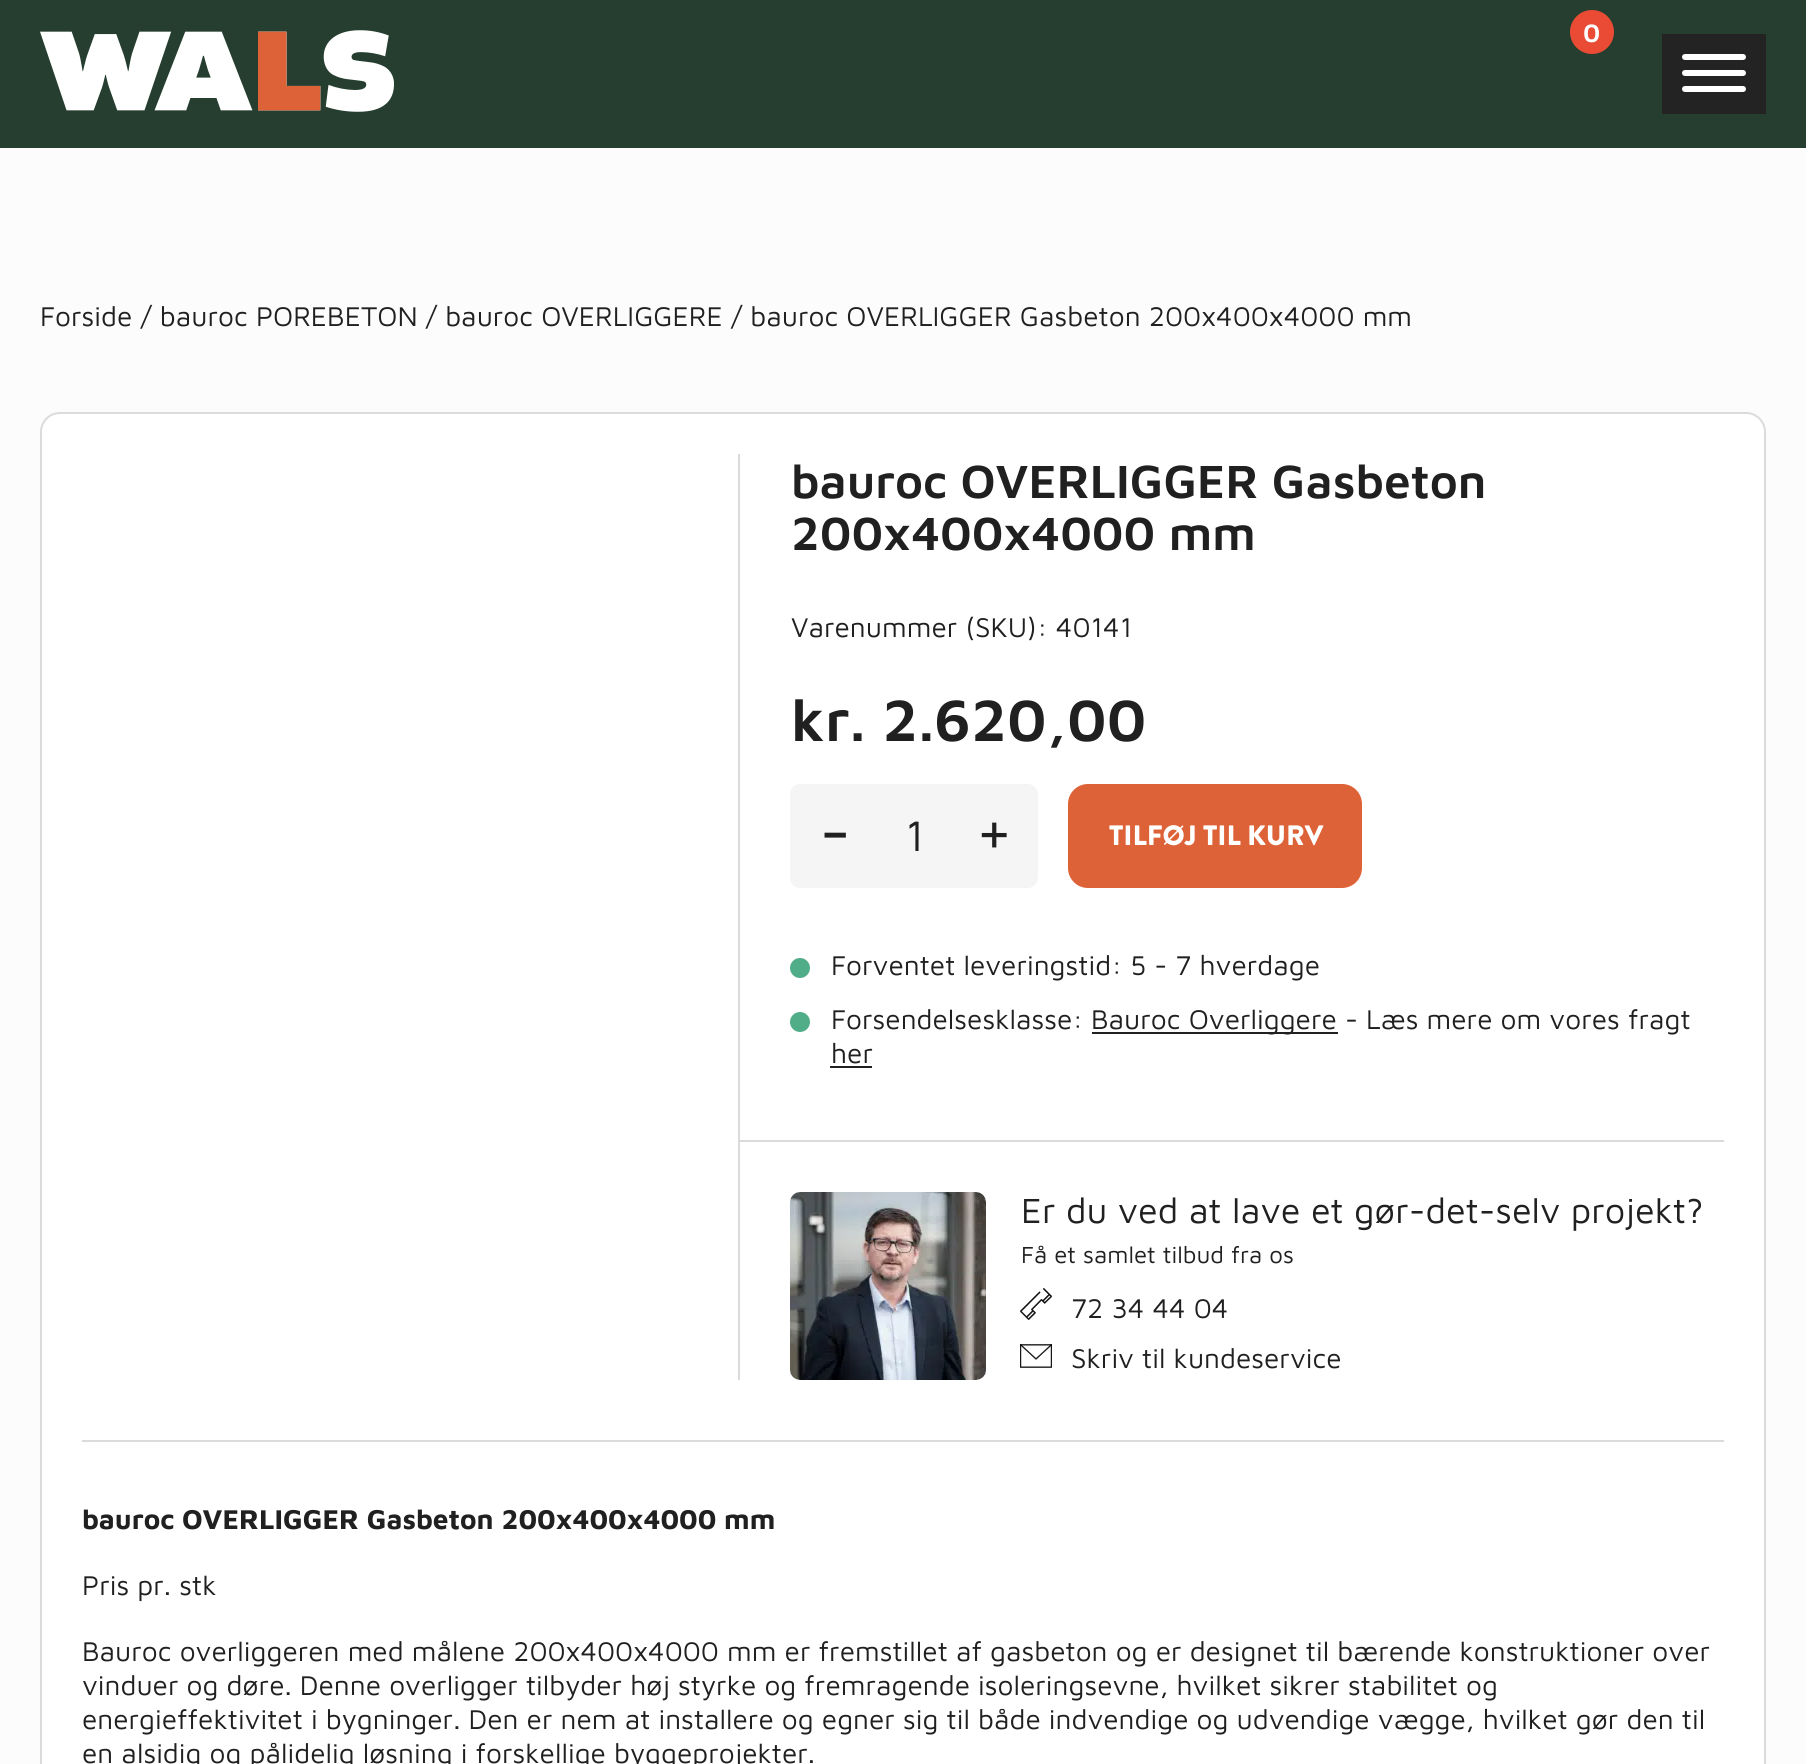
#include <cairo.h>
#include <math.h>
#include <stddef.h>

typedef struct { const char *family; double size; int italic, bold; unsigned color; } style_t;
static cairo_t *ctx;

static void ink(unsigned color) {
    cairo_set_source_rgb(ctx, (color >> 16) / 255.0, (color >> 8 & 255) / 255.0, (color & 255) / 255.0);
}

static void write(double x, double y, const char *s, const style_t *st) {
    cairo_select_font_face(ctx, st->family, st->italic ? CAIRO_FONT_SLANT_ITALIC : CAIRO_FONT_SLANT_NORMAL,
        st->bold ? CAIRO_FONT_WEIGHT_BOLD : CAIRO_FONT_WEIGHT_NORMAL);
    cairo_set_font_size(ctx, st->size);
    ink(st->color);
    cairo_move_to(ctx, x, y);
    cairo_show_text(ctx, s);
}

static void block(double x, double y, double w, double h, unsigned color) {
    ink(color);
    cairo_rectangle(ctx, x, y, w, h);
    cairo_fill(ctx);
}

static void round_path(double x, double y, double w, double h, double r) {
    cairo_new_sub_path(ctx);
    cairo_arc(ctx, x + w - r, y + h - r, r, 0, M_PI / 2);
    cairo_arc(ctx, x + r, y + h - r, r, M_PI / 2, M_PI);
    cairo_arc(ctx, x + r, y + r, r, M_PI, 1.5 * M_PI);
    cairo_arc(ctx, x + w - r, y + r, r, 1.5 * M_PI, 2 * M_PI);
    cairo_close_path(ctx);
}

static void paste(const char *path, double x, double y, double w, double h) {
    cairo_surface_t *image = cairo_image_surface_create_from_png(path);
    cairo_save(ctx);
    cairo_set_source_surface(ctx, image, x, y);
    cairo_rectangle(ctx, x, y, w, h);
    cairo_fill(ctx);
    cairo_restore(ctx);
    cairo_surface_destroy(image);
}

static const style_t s1 = {"Maven Pro SemiBold", 26, 0, 0, 0xffffff};
static const style_t s2 = {"Maven Pro", 28, 0, 0, 0x202020};
static const style_t s3 = {"Maven Pro SemiBold", 48, 0, 0, 0x202020};
static const style_t s4 = {"Maven Pro SemiBold", 60, 0, 0, 0x202020};
static const style_t s5 = {"Maven Pro", 70, 0, 0, 0x202020};
static const style_t s6 = {"Maven Pro", 44, 0, 0, 0x202020};
static const style_t s7 = {"Brandon Grotesque Black", 28, 0, 0, 0xffffff};
static const style_t s8 = {"Maven Pro", 36, 0, 0, 0x202020};
static const style_t s9 = {"Maven Pro", 24, 0, 0, 0x202020};
static const style_t s10 = {"Maven Pro", 28, 0, 1, 0x202020};

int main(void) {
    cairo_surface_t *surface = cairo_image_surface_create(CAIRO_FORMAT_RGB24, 1806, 1764);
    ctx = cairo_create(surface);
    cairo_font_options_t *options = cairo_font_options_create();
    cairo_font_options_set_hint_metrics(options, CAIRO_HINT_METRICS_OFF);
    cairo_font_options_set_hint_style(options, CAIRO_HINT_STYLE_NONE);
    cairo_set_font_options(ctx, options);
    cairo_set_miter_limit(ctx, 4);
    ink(0xfcfcfc);
    cairo_paint(ctx);
    block(0, 0, 1806, 148, 0x253e2f);
    paste("pic1.png", 40, 30, 354, 82);
    ink(0xe94b35);
    cairo_arc(ctx, 1592, 32, 22, 0, 2 * M_PI);
    cairo_fill(ctx);
    write(1583, 42, "0", &s1);
    block(1662, 34, 104, 80, 0x232323);
    ink(0xffffff);
    round_path(1682, 54, 64, 6, 3);
    cairo_fill(ctx);
    round_path(1682, 70, 64, 6, 3);
    cairo_fill(ctx);
    round_path(1682, 86, 64, 6, 3);
    cairo_fill(ctx);
    write(40, 326, "Forside / bauroc POREBETON / bauroc OVERLIGGERE / bauroc OVERLIGGER Gasbeton 200x400x4000 mm", &s2);
    ink(0xffffff);
    round_path(41, 413, 1724, 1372, 19);
    cairo_fill_preserve(ctx);
    ink(0xdbdbdb);
    cairo_stroke(ctx);
    block(738, 454, 2, 926, 0xdbdbdb);
    write(791, 498, "bauroc OVERLIGGER Gasbeton", &s3);
    write(791, 550, "200x400x4000 mm", &s3);
    write(791, 637, "Varenummer (SKU): 40141", &s2);
    write(791, 741, "kr. 2.620,00", &s4);
    ink(0xf5f5f5);
    cairo_new_path(ctx);
    cairo_move_to(ctx, 800, 784);
    cairo_line_to(ctx, 878, 784);
    cairo_line_to(ctx, 878, 888);
    cairo_line_to(ctx, 800, 888);
    cairo_curve_to(ctx, 794.5, 888, 790, 883.5, 790, 878);
    cairo_line_to(ctx, 790, 794);
    cairo_curve_to(ctx, 790, 788.5, 794.5, 784, 800, 784);
    cairo_close_path(ctx);
    cairo_fill(ctx);
    write(819, 856, "-", &s5);
    block(878, 784, 72, 104, 0xf5f5f5);
    write(905, 851, "1", &s6);
    ink(0xf5f5f5);
    cairo_new_path(ctx);
    cairo_move_to(ctx, 950, 784);
    cairo_line_to(ctx, 1028, 784);
    cairo_curve_to(ctx, 1033.5, 784, 1038, 788.5, 1038, 794);
    cairo_line_to(ctx, 1038, 878);
    cairo_curve_to(ctx, 1038, 883.5, 1033.5, 888, 1028, 888);
    cairo_line_to(ctx, 950, 888);
    cairo_close_path(ctx);
    cairo_fill(ctx);
    write(975, 856, "+", &s5);
    ink(0xde6237);
    round_path(1068, 784, 294, 104, 20);
    cairo_fill(ctx);
    write(1109, 845, "TILFØJ TIL KURV", &s7);
    ink(0x51ad88);
    cairo_new_path(ctx);
    cairo_arc(ctx, 800, 968, 10, 0, 2 * M_PI);
    cairo_fill(ctx);
    write(831, 975, "Forventet leveringstid: 5 - 7 hverdage", &s2);
    ink(0x51ad88);
    cairo_new_path(ctx);
    cairo_arc(ctx, 800, 1022, 10, 0, 2 * M_PI);
    cairo_fill(ctx);
    write(831, 1029, "Forsendelsesklasse:", &s2);
    block(1092, 1032, 246, 2, 0x202020);
    write(1091, 1029, "Bauroc Overliggere - Læs mere om vores fragt", &s2);
    write(831, 1063, "her", &s2);
    block(830, 1066, 42, 2, 0x202020);
    block(740, 1140, 984, 2, 0xdbdbdb);
    paste("pic2.png", 790, 1192, 196, 188);
    write(1021, 1223, "Er du ved at lave et gør-det-selv projekt?", &s8);
    write(1021, 1263, "Få et samlet tilbud fra os", &s9);
    paste("pic3.png", 1020, 1288, 32, 32);
    write(1071, 1318, "72 34 44 04", &s2);
    paste("pic4.png", 1020, 1344, 32, 24);
    write(1071, 1368, "Skriv til kundeservice", &s2);
    block(82, 1440, 1642, 2, 0xdbdbdb);
    write(82, 1529, "bauroc OVERLIGGER Gasbeton 200x400x4000 mm", &s10);
    write(82, 1595, "Pris pr. stk", &s2);
    write(82, 1661, "Bauroc overliggeren med målene 200x400x4000 mm er fremstillet af gasbeton og er designet til bærende konstruktioner over", &s2);
    write(82, 1695, "vinduer og døre. Denne overligger tilbyder høj styrke og fremragende isoleringsevne, hvilket sikrer stabilitet og", &s2);
    write(82, 1729, "energieffektivitet i bygninger. Den er nem at installere og egner sig til både indvendige og udvendige vægge, hvilket gør den til", &s2);
    write(82, 1763, "en alsidig og pålidelig løsning i forskellige byggeprojekter.", &s2);
    cairo_surface_write_to_png(surface, "screenshot.png");
    cairo_font_options_destroy(options);
    cairo_destroy(ctx);
    cairo_surface_destroy(surface);
    return 0;
}
